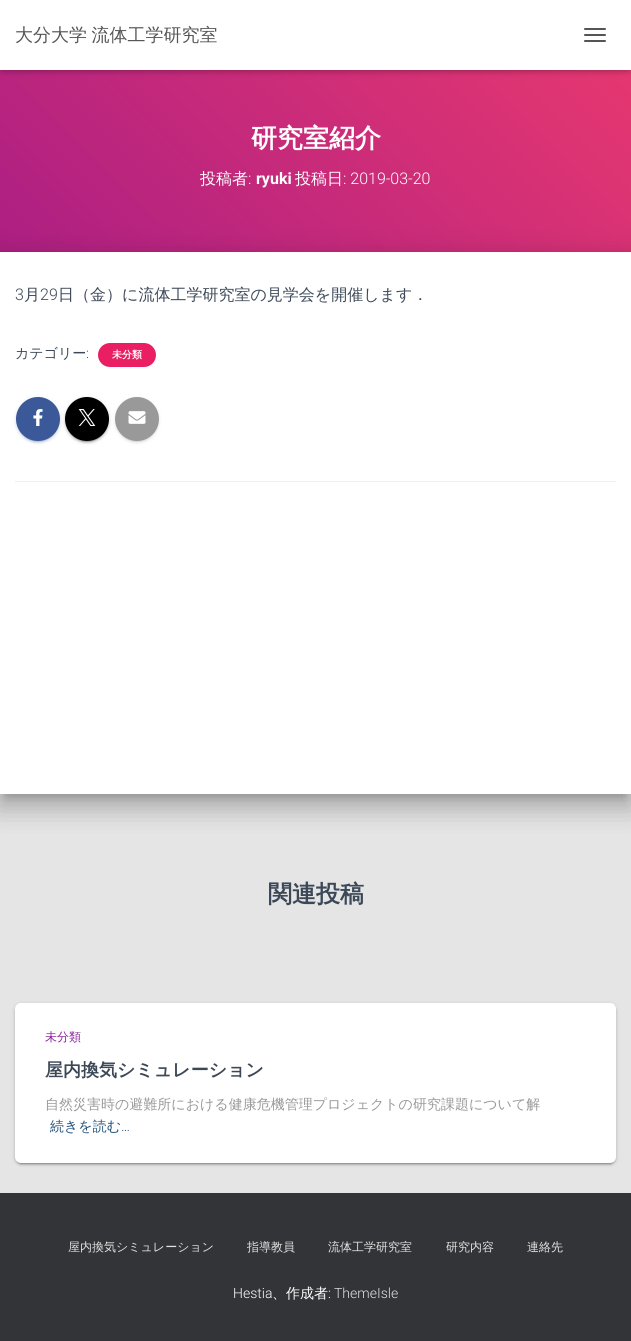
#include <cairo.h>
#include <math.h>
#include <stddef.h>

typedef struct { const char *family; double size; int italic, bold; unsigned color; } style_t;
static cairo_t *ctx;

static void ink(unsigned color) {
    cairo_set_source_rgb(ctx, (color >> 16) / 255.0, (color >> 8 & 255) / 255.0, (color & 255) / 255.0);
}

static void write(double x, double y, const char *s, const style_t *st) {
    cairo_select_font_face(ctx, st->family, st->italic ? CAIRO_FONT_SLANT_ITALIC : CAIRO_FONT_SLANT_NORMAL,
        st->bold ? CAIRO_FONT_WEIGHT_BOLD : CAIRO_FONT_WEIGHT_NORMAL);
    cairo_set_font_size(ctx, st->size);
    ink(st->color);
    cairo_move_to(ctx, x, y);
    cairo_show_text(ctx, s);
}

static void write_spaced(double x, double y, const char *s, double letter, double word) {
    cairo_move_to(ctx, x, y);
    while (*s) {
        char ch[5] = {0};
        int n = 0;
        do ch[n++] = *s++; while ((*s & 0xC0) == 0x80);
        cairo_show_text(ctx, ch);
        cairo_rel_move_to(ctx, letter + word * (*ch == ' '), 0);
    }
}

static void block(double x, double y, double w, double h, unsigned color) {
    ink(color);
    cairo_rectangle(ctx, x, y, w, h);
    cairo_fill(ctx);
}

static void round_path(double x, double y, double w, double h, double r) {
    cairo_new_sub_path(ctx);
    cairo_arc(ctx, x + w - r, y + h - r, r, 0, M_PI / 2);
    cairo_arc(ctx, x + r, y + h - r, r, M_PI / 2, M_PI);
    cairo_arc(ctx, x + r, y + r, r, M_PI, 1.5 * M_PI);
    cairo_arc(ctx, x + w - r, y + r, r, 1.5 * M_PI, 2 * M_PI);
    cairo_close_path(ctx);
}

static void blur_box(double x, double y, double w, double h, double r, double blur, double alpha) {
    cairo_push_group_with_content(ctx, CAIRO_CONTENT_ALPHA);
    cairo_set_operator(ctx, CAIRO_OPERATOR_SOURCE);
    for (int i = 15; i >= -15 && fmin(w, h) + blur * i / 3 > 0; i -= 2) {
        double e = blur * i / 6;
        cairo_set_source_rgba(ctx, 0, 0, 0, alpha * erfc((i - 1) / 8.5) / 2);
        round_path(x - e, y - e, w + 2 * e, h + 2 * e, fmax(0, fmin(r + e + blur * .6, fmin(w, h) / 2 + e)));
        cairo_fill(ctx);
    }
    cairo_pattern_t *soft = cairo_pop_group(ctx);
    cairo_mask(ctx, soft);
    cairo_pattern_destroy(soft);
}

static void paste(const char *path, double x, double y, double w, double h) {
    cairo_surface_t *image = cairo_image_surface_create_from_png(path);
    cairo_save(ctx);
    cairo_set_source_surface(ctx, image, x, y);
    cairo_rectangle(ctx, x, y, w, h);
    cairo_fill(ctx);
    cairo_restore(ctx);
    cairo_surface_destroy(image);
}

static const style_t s1 = {"WenQuanYi Zen Hei", 26, 0, 1, 0xffffff};
static const style_t s2 = {"WenQuanYi Zen Hei Medium", 16, 0, 0, 0xffffff};
static const style_t s3 = {"Roboto Light", 16, 0, 0, 0xffffff};
static const style_t s4 = {"Roboto", 16, 0, 1, 0xffffff};
static const style_t s5 = {"Roboto Light", 16, 0, 0, 0x3c4858};
static const style_t s6 = {"WenQuanYi Zen Hei Medium", 16, 0, 0, 0x3c4858};
static const style_t s7 = {"WenQuanYi Zen Hei Medium", 14, 0, 0, 0x3c4858};
static const style_t s8 = {"Roboto Light", 14, 0, 0, 0x3c4858};
static const style_t s9 = {"WenQuanYi Zen Hei", 10, 0, 1, 0xffffff};
static const style_t s10 = {"WenQuanYi Zen Hei", 24, 0, 1, 0x3c4858};
static const style_t s11 = {"WenQuanYi Zen Hei Medium", 12, 0, 0, 0x89229b};
static const style_t s12 = {"WenQuanYi Zen Hei", 18, 0, 1, 0x3c4858};
static const style_t s13 = {"WenQuanYi Zen Hei Medium", 14, 0, 0, 0x999999};
static const style_t s14 = {"WenQuanYi Zen Hei Medium", 14, 0, 0, 0x23527c};
static const style_t s15 = {"Roboto Light", 14, 0, 0, 0x23527c};
static const style_t s16 = {"WenQuanYi Zen Hei Medium", 12, 0, 0, 0xe2e3e3};
static const style_t s17 = {"Roboto Light", 14, 0, 0, 0xffffff};
static const style_t s18 = {"WenQuanYi Zen Hei Medium", 14, 0, 0, 0xffffff};
static const style_t s19 = {"Roboto Light", 14, 0, 0, 0xe2e3e3};

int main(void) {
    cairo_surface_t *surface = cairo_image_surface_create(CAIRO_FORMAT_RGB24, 631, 1341);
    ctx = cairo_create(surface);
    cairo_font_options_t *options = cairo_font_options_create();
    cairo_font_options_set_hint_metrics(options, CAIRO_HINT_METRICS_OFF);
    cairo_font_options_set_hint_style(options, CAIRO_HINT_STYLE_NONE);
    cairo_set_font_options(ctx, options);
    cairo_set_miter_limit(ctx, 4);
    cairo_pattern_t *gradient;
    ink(0xe5e5e5);
    cairo_paint(ctx);
    gradient = cairo_pattern_create_linear(80, 392, 551, -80);
    cairo_pattern_add_color_stop_rgba(gradient, 0, 0.659, 0.114, 0.518, 1);
    cairo_pattern_add_color_stop_rgba(gradient, 1, 0.918, 0.224, 0.435, 1);
    cairo_set_source(ctx, gradient);
    cairo_pattern_destroy(gradient);
    cairo_rectangle(ctx, 0, 70, 631, 182);
    cairo_fill(ctx);
    ink(0x000000);
    blur_box(2, 6, 627, 66, 0, 2.5, 0.1);
    blur_box(0, 1, 631, 70, 0, 5, 0.12);
    blur_box(6, 7, 619, 58, 0, 5, 0.42);
    block(0, 0, 631, 70, 0xffffff);
    cairo_select_font_face(ctx, "WenQuanYi Zen Hei Medium", CAIRO_FONT_SLANT_NORMAL, CAIRO_FONT_WEIGHT_NORMAL);
    cairo_set_font_size(ctx, 18);
    ink(0x555555);
    write_spaced(15, 41, "大分大学 流体工学研究室", 0, -1);
    round_path(584, 28, 22, 2, 1);
    cairo_fill(ctx);
    round_path(584, 34, 22, 2, 1);
    cairo_fill(ctx);
    round_path(584, 40, 22, 2, 1);
    cairo_fill(ctx);
    write(251, 147, "研究室紹介", &s1);
    write(200, 184, "投稿者", &s2);
    write(248, 184, ":", &s3);
    write(256, 184, "ryuki", &s4);
    write(295, 184, "投稿日", &s2);
    write(343, 184, ": 2019-03-20", &s3);
    ink(0x000000);
    blur_box(5, 265, 621, 532, 0, 5, 0.2);
    blur_box(-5, 253, 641, 552, 0, 15, 0.12);
    blur_box(-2, 266, 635, 546, 0, 12, 0.14);
    block(0, 252, 631, 542, 0xffffff);
    write(15, 300, "3", &s5);
    write(24, 300, "月", &s6);
    write(40, 300, "29", &s5);
    write(58, 300, "日（金）に流体工学研究室の見学会を開催します．", &s6);
    write(15, 358, "カテゴリー", &s7);
    write(86, 358, ":", &s8);
    ink(0xe91e63);
    round_path(98, 343, 58, 24, 12);
    cairo_fill(ctx);
    write(112, 358, "未分類", &s9);
    ink(0x3b5998);
    blur_box(16, 398, 44, 44, 22, 2.5, 0.12);
    blur_box(18, 402, 40, 40, 20, 0.5, 0.2);
    blur_box(16, 399, 44, 44, 22, 1, 0.14);
    ink(0x3b5998);
    cairo_arc(ctx, 38, 419, 22, 0, 2 * M_PI);
    cairo_fill(ctx);
    paste("pic1.png", 33, 409, 10, 17);
    ink(0x000000);
    blur_box(65, 398, 44, 44, 22, 2.5, 0.12);
    blur_box(67, 402, 40, 40, 20, 0.5, 0.2);
    blur_box(65, 399, 44, 44, 22, 1, 0.14);
    ink(0x000000);
    cairo_arc(ctx, 87, 419, 22, 0, 2 * M_PI);
    cairo_fill(ctx);
    paste("pic2.png", 78, 409, 18, 17);
    ink(0x999999);
    blur_box(115, 398, 44, 44, 22, 2.5, 0.12);
    blur_box(117, 402, 40, 40, 20, 0.5, 0.2);
    blur_box(115, 399, 44, 44, 22, 1, 0.14);
    ink(0x999999);
    cairo_arc(ctx, 137, 419, 22, 0, 2 * M_PI);
    cairo_fill(ctx);
    paste("pic3.png", 128, 411, 18, 13);
    block(15, 481, 601, 1, 0xeeeeee);
    write(268, 902, "関連投稿", &s10);
    ink(0x000000);
    blur_box(15, 1004, 601, 160, 6, 2.5, 0.12);
    blur_box(17, 1008, 597, 156, 4, 0.5, 0.2);
    blur_box(15, 1005, 601, 160, 6, 1, 0.14);
    ink(0xffffff);
    round_path(15, 1003, 601, 160, 6);
    cairo_fill(ctx);
    write(45, 1041, "未分類", &s11);
    write(45, 1076, "屋内換気シミュレーション", &s12);
    write(45, 1109, "自然災害時の避難所における健康危機管理プロジェクトの研究課題について解", &s13);
    write(50, 1131, "続きを読む", &s14);
    write(121, 1131, "…", &s15);
    block(0, 1193, 631, 148, 0x323437);
    write(68, 1251, "屋内換気シミュレーション", &s16);
    write(247, 1251, "指導教員", &s16);
    write(328, 1251, "流体工学研究室", &s16);
    write(446, 1251, "研究内容", &s16);
    write(527, 1251, "連絡先", &s16);
    write(233, 1298, "Hestia", &s17);
    write(272, 1298, "、作成者", &s18);
    write(328, 1298, ":", &s17);
    write(334, 1298, "ThemeIsle", &s19);
    cairo_surface_write_to_png(surface, "screenshot.png");
    cairo_font_options_destroy(options);
    cairo_destroy(ctx);
    cairo_surface_destroy(surface);
    return 0;
}
